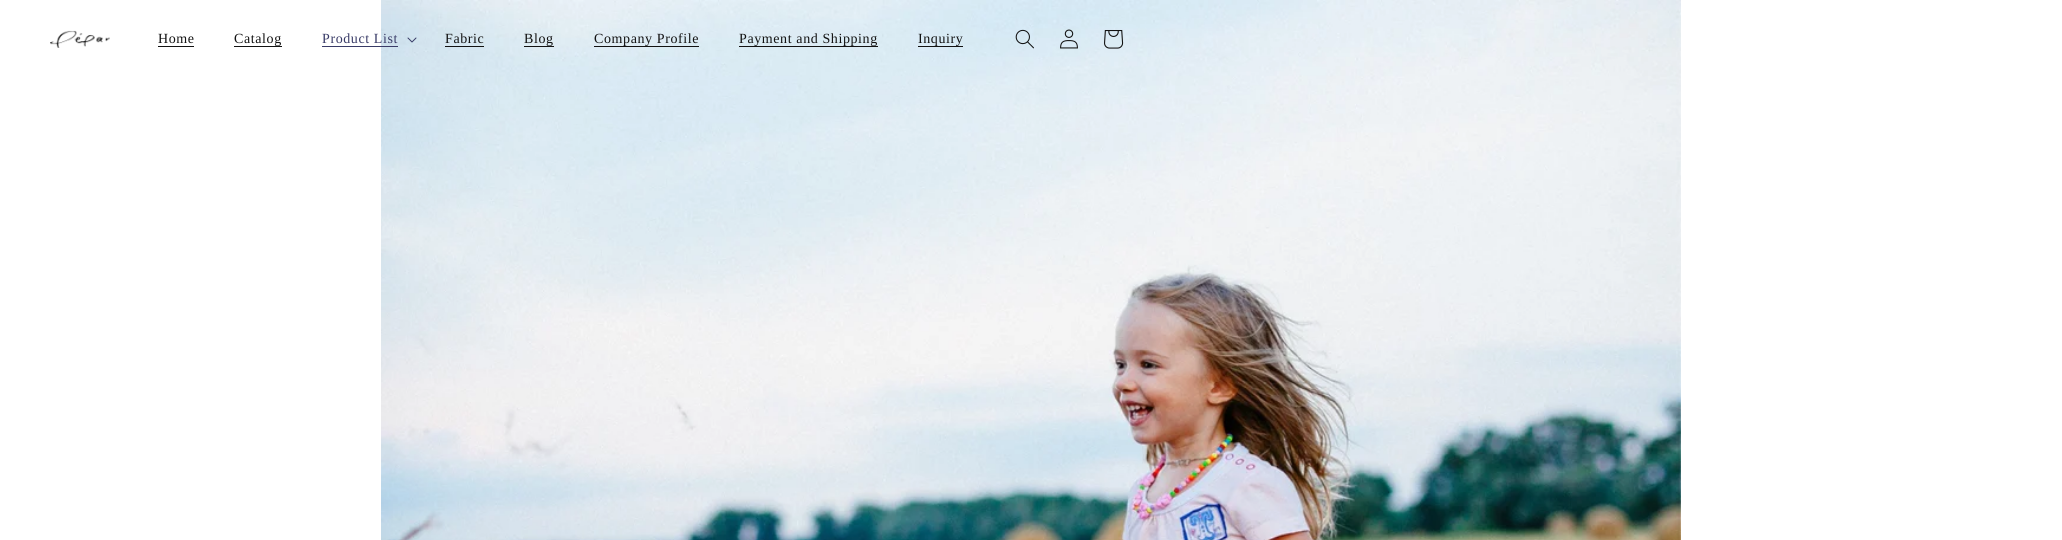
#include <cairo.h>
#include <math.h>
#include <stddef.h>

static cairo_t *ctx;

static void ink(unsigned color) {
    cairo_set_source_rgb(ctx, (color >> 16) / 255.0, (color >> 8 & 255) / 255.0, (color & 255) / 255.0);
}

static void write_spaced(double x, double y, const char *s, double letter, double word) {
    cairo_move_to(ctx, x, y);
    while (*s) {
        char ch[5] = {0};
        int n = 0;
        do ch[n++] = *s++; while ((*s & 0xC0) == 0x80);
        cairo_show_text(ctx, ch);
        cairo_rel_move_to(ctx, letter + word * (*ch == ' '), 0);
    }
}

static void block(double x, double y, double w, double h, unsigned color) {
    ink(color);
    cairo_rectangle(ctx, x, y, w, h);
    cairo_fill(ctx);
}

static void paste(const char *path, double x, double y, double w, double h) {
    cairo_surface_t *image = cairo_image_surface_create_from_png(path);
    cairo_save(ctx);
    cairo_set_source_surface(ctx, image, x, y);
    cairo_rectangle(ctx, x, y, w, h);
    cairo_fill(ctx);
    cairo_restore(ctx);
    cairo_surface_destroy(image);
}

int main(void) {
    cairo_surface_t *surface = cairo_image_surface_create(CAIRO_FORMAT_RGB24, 2062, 540);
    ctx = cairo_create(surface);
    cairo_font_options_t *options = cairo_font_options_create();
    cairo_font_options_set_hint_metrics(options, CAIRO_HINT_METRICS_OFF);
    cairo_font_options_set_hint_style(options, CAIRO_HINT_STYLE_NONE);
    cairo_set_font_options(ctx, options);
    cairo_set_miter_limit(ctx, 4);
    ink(0xffffff);
    cairo_paint(ctx);
    paste("pic1.png", 381, 0, 1300, 540);
    paste("pic2.png", 50, 30, 60, 18);
    cairo_select_font_face(ctx, "Liberation Serif", CAIRO_FONT_SLANT_NORMAL, CAIRO_FONT_WEIGHT_NORMAL);
    cairo_set_font_size(ctx, 14);
    ink(0x121212);
    write_spaced(158, 43, "Home", 0.6, 0);
    block(158, 46, 36, 1, 0x121212);
    write_spaced(234, 43, "Catalog", 0.6, 0);
    block(234, 46, 48, 1, 0x121212);
    ink(0x393b67);
    write_spaced(322, 43, "Product List", 0.6, 0);
    block(322, 46, 76, 1, 0x393b67);
    paste("pic3.png", 407, 37, 10, 6);
    ink(0x121212);
    write_spaced(445, 43, "Fabric", 0.6, 0);
    block(445, 46, 39, 1, 0x121212);
    write_spaced(524, 43, "Blog", 0.6, 0);
    block(524, 46, 30, 1, 0x121212);
    write_spaced(594, 43, "Company Profile", 0.6, 0);
    block(594, 46, 105, 1, 0x121212);
    write_spaced(739, 43, "Payment and Shipping", 0.6, 0);
    block(739, 46, 139, 1, 0x121212);
    write_spaced(918, 43, "Inquiry", 0.6, 0);
    block(918, 46, 45, 1, 0x121212);
    paste("pic4.png", 1015, 29, 19, 20);
    paste("pic5.png", 1060, 29, 18, 20);
    paste("pic6.png", 1104, 30, 20, 19);
    cairo_surface_write_to_png(surface, "screenshot.png");
    cairo_font_options_destroy(options);
    cairo_destroy(ctx);
    cairo_surface_destroy(surface);
    return 0;
}
